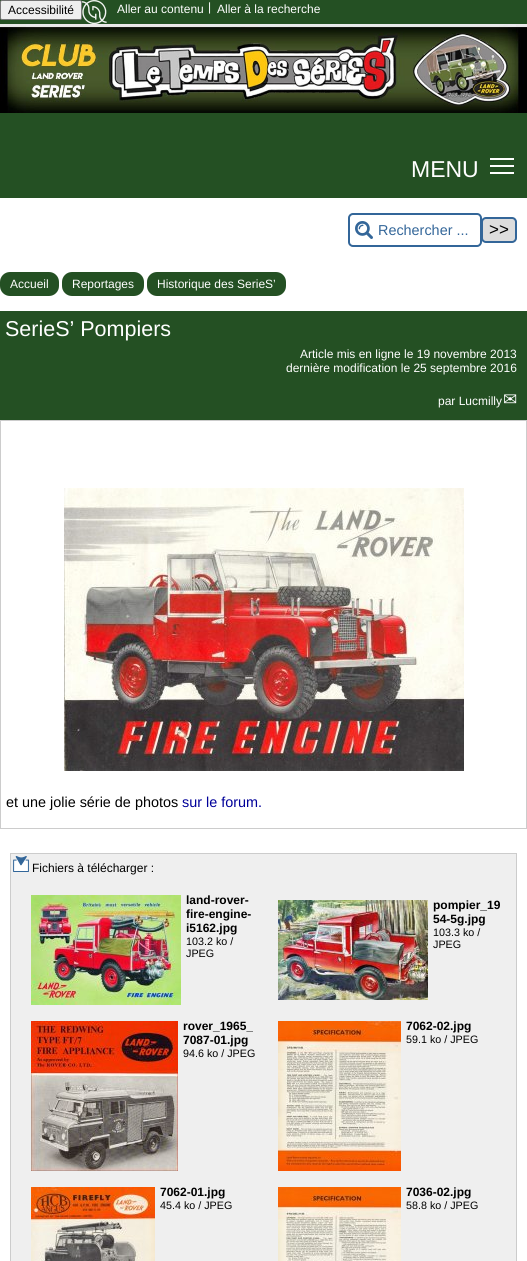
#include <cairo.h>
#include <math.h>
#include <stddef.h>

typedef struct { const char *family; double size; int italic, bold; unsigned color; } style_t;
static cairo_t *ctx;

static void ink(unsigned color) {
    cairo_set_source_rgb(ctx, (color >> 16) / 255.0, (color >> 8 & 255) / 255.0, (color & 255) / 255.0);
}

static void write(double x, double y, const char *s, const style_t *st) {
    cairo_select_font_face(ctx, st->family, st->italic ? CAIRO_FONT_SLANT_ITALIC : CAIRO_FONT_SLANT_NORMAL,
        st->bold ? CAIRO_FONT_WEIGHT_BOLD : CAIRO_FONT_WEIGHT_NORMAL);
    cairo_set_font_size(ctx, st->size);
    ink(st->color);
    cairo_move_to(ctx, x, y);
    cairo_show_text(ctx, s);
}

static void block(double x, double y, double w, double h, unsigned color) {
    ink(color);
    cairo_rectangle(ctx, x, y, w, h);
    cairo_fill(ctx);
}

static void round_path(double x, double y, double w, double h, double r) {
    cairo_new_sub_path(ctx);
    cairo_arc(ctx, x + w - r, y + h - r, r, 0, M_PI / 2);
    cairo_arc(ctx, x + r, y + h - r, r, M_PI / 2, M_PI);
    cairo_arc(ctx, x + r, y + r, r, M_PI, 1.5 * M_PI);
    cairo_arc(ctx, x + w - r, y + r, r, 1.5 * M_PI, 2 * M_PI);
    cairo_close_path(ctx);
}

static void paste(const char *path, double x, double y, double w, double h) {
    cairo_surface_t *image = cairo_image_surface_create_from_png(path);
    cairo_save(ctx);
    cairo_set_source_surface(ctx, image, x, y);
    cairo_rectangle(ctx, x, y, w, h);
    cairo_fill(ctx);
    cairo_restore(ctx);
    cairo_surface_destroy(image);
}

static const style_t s1 = {"Liberation Sans", 12, 0, 0, 0x000000};
static const style_t s2 = {"Liberation Sans", 12, 0, 0, 0xffffff};
static const style_t s3 = {"Liberation Sans", 23, 0, 0, 0xffffff};
static const style_t s4 = {"Liberation Sans", 14.4, 0, 0, 0x336699};
static const style_t s5 = {"Liberation Sans", 17, 0, 0, 0x000000};
static const style_t s6 = {"Liberation Sans", 21.5, 0, 0, 0xffffff};
static const style_t s7 = {"DejaVu Sans", 17, 0, 0, 0xffffff};
static const style_t s8 = {"Liberation Sans", 14.4, 0, 0, 0x000000};
static const style_t s9 = {"Liberation Sans", 14.4, 0, 0, 0x000099};
static const style_t s10 = {"Liberation Sans", 12, 0, 1, 0x000000};
static const style_t s11 = {"Liberation Sans", 10.75, 0, 0, 0x000000};

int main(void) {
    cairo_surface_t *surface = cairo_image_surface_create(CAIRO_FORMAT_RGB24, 527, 1261);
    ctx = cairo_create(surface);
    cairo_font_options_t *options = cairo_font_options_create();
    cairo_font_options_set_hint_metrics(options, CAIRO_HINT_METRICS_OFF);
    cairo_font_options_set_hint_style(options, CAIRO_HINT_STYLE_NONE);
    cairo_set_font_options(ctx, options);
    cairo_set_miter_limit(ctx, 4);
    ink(0xffffff);
    cairo_paint(ctx);
    block(0, 0, 527, 198, 0x245023);
    ink(0xefefef);
    round_path(0.5, 0.5, 81, 19, 1.5);
    cairo_fill_preserve(ctx);
    ink(0x767676);
    cairo_set_line_width(ctx, 1);
    cairo_stroke(ctx);
    write(8, 14, "Accessibilité", &s1);
    paste("pic1.png", 82, 0, 25, 24);
    write(117, 13, "Aller au contenu", &s2);
    write(208, 11, "|", &s2);
    write(217, 13, "Aller à la recherche", &s2);
    paste("pic2.png", 0, 24, 527, 89);
    write(411, 177, "MENU", &s3);
    block(490, 165, 24, 2, 0xffffff);
    block(490, 158, 24, 2, 0xffffff);
    block(490, 172, 24, 2, 0xffffff);
    paste("pic3.png", 355, 221, 18, 18);
    round_path(349, 214, 132, 32, 4);
    ink(0x336699);
    cairo_set_line_width(ctx, 2);
    cairo_stroke(ctx);
    write(378, 235, "Rechercher ...", &s4);
    ink(0xdddddd);
    round_path(482, 218, 34, 24, 4);
    cairo_fill_preserve(ctx);
    ink(0x336699);
    cairo_stroke(ctx);
    write(489, 235, ">>", &s5);
    ink(0x245023);
    round_path(0, 272, 59, 24, 10);
    cairo_fill(ctx);
    write(10, 288, "Accueil", &s2);
    ink(0x245023);
    round_path(62, 272, 82, 24, 10);
    cairo_fill(ctx);
    write(72, 288, "Reportages", &s2);
    ink(0x245023);
    round_path(147, 272, 139, 24, 10);
    cairo_fill(ctx);
    write(157, 288, "Historique des SerieS’", &s2);
    block(0, 311, 527, 109, 0x245023);
    write(5, 336, "SerieS’ Pompiers", &s6);
    write(300, 358, "Article mis en ligne le 19 novembre 2013", &s2);
    write(286, 372, "dernière modification le 25 septembre 2016", &s2);
    write(438, 405, "par Lucmilly", &s2);
    write(503, 405, "✉", &s7);
    cairo_rectangle(ctx, 0.5, 420.5, 526, 408);
    ink(0xcccccc);
    cairo_set_line_width(ctx, 1);
    cairo_stroke(ctx);
    paste("pic4.png", 64, 488, 400, 283);
    write(6, 807, "et une jolie série de photos", &s8);
    write(182, 807, "sur le forum.", &s9);
    ink(0xefefef);
    cairo_rectangle(ctx, 10.5, 853.5, 506, 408);
    cairo_fill_preserve(ctx);
    ink(0xcccccc);
    cairo_stroke(ctx);
    paste("pic5.png", 13, 856, 16, 16);
    write(32, 872, "Fichiers à télécharger :", &s1);
    paste("pic6.png", 31, 895, 150, 110);
    write(186, 904, "land-rover-", &s10);
    write(186, 918, "fire-engine-", &s10);
    write(186, 932, "i5162.jpg", &s10);
    write(186, 945, "103.2 ko /", &s11);
    write(186, 957, "JPEG", &s11);
    paste("pic7.png", 278, 900, 150, 100);
    write(433, 909, "pompier_19", &s10);
    write(433, 923, "54-5g.jpg", &s10);
    write(433, 936, "103.3 ko /", &s11);
    write(433, 948, "JPEG", &s11);
    paste("pic8.png", 31, 1021, 147, 150);
    write(183, 1030, "rover_1965_", &s10);
    write(183, 1044, "7087-01.jpg", &s10);
    write(183, 1057, "94.6 ko / JPEG", &s11);
    paste("pic9.png", 278, 1021, 123, 150);
    write(406, 1030, "7062-02.jpg", &s10);
    write(406, 1043, "59.1 ko / JPEG", &s11);
    paste("pic10.png", 31, 1187, 124, 74);
    write(160, 1196, "7062-01.jpg", &s10);
    write(160, 1209, "45.4 ko / JPEG", &s11);
    paste("pic11.png", 278, 1187, 123, 74);
    write(406, 1196, "7036-02.jpg", &s10);
    write(406, 1209, "58.8 ko / JPEG", &s11);
    cairo_surface_write_to_png(surface, "screenshot.png");
    cairo_font_options_destroy(options);
    cairo_destroy(ctx);
    cairo_surface_destroy(surface);
    return 0;
}
